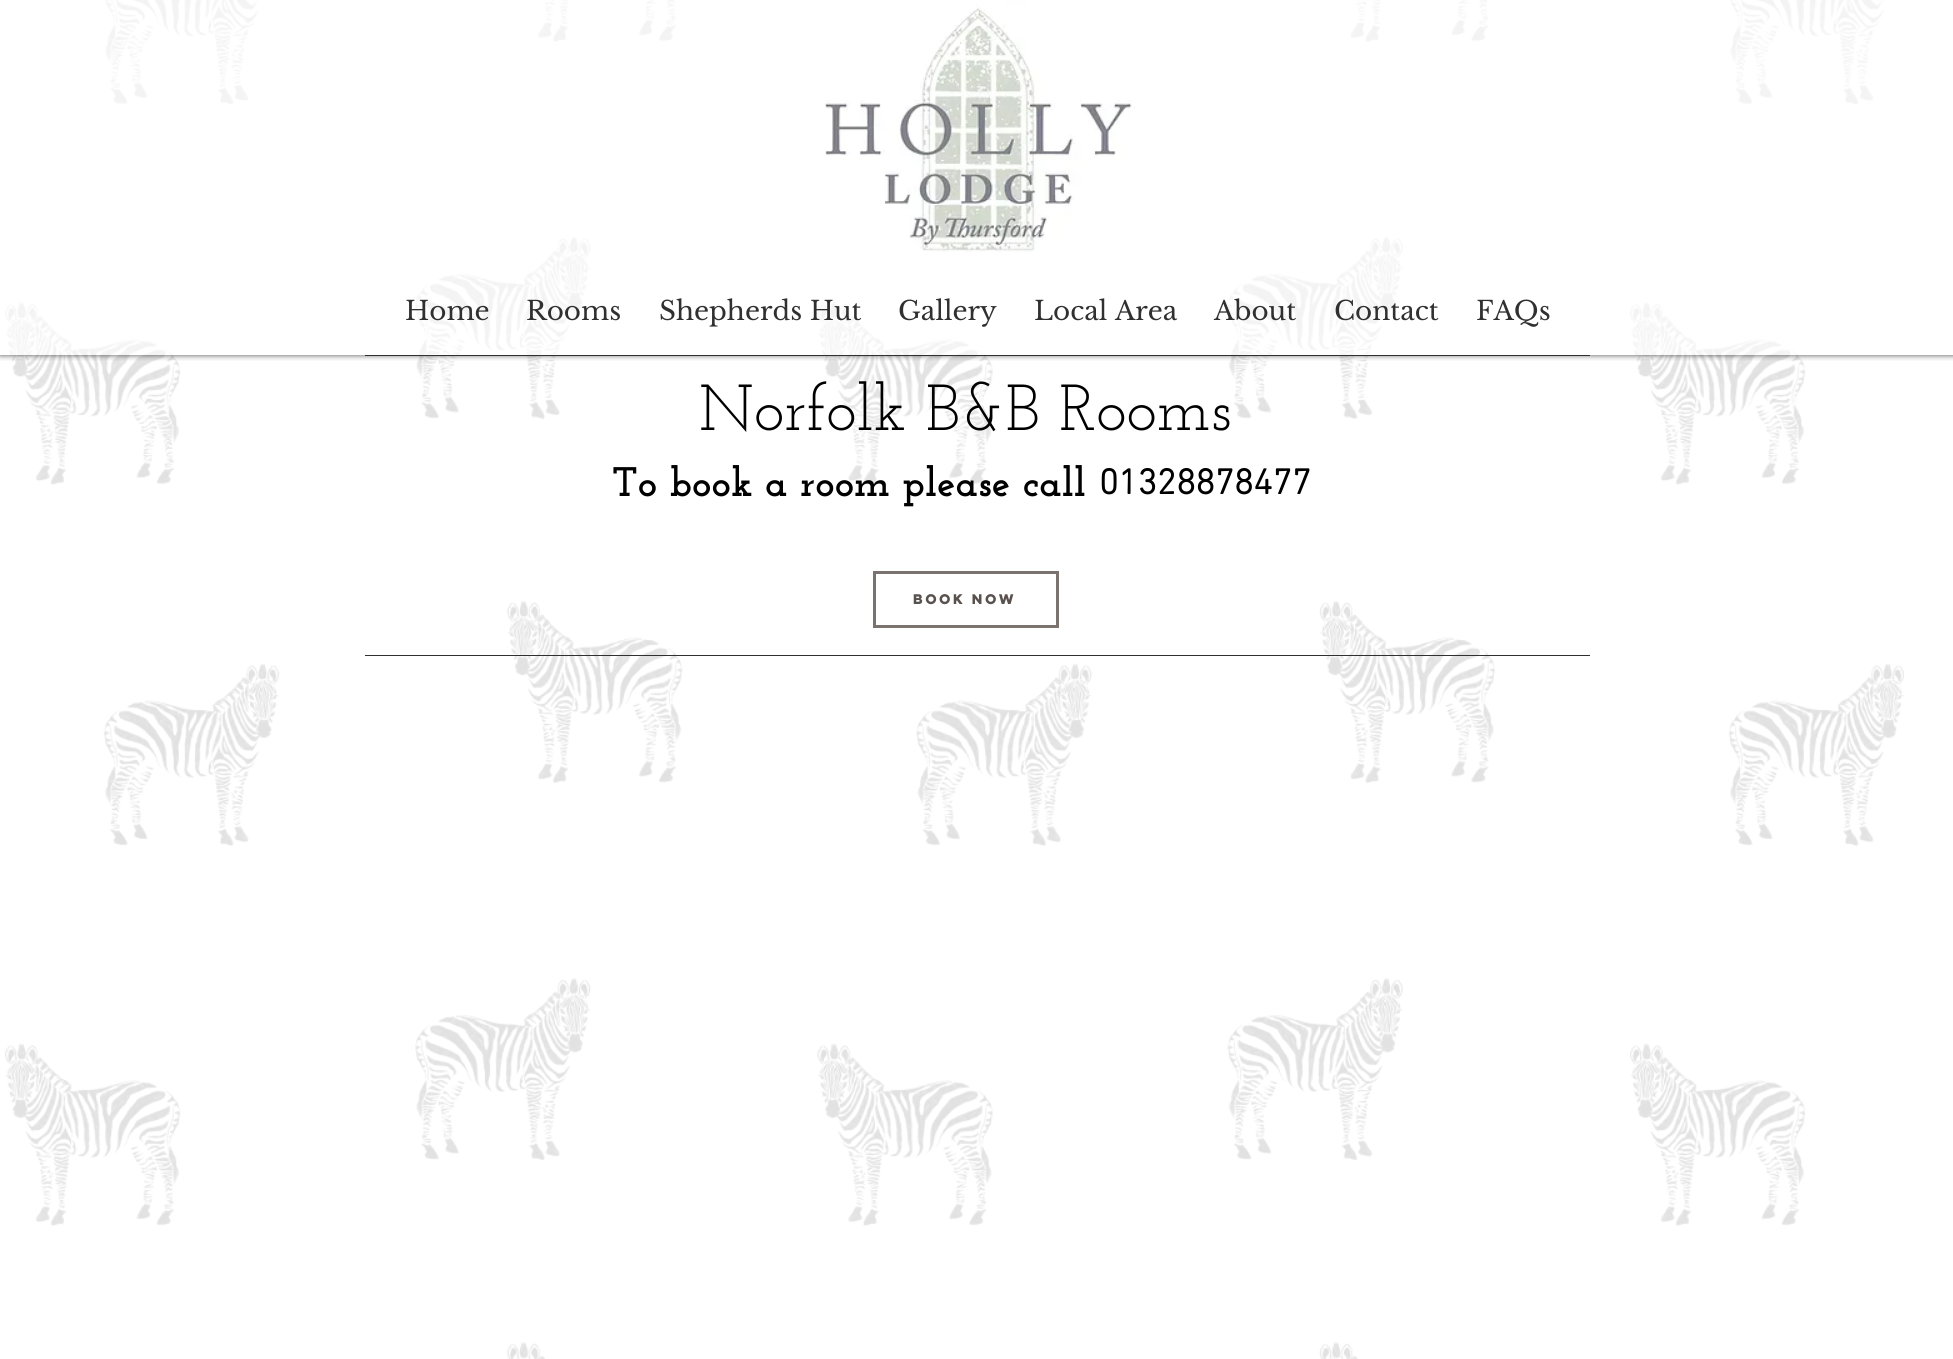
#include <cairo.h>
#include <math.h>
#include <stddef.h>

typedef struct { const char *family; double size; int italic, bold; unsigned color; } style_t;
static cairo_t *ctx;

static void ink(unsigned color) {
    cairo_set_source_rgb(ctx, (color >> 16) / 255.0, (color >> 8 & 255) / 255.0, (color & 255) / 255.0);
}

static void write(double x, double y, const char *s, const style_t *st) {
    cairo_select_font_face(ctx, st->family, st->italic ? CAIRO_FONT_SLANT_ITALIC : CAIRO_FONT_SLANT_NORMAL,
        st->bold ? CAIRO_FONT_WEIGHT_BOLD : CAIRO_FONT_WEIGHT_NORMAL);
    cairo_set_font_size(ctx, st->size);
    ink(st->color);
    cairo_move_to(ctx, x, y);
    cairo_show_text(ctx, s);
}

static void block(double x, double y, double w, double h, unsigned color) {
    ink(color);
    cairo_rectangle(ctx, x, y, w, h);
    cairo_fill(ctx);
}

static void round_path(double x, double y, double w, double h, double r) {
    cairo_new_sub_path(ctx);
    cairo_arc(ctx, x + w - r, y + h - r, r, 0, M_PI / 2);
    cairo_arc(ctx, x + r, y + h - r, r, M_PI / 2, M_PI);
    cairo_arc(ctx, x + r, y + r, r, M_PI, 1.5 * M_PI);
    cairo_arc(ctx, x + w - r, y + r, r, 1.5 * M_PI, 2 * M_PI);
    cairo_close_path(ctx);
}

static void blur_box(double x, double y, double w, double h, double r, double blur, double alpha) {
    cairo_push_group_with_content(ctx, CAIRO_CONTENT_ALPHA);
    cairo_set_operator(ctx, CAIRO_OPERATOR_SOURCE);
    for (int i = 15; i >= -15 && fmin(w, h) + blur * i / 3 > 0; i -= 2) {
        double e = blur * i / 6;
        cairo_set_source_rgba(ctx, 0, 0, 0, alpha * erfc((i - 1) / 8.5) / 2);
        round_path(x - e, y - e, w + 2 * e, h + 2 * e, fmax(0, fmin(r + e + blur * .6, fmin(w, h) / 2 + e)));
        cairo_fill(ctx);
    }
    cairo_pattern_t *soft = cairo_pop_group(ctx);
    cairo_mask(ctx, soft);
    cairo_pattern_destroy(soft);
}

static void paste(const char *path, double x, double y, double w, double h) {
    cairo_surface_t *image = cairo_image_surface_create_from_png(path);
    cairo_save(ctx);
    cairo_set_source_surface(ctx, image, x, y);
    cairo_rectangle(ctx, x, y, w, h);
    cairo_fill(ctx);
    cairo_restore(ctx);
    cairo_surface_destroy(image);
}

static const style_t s1 = {"Libre Baskerville", 26.25, 0, 0, 0x303030};
static const style_t s2 = {"Josefin Slab", 65, 0, 0, 0x000000};
static const style_t s3 = {"Josefin Slab", 41.25, 0, 1, 0x000000};
static const style_t s4 = {"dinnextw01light", 36.25, 0, 1, 0x000000};
static const style_t s5 = {"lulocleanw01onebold", 12.5, 0, 1, 0x59514d};

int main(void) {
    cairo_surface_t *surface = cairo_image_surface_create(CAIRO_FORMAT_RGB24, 1953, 1359);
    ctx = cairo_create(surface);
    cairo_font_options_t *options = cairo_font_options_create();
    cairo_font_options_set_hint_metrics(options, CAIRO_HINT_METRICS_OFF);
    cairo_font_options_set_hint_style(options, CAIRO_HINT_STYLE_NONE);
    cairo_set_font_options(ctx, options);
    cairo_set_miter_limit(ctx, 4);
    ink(0xffffff);
    cairo_paint(ctx);
    paste("pic1.png", 5, 0, 1899, 1359);
    cairo_save(ctx);
    cairo_rectangle(ctx, 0, 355, 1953, 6);
    cairo_clip(ctx);
    ink(0x000000);
    blur_box(0, 0, 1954, 355, 0, 3, 0.7);
    cairo_restore(ctx);
    cairo_set_source_rgba(ctx, 1, 1, 1, 0.6);
    cairo_rectangle(ctx, 5, 0, 1879, 355);
    cairo_fill(ctx);
    paste("pic2.png", 825, 0, 310, 252);
    write(405, 320, "Home", &s1);
    write(526, 320, "Rooms", &s1);
    write(659, 320, "Shepherds Hut", &s1);
    write(898, 320, "Gallery", &s1);
    write(1034, 320, "Local Area", &s1);
    write(1214, 320, "About", &s1);
    write(1334, 320, "Contact", &s1);
    write(1476, 320, "FAQs", &s1);
    block(365, 355, 1225, 1, 0x303030);
    write(699, 430, "Norfolk B&B Rooms", &s2);
    write(612, 496, "To book a room please call", &s3);
    write(1099, 494, "01328878477", &s4);
    cairo_rectangle(ctx, 874.5, 572.5, 183, 54);
    ink(0x7b736f);
    cairo_set_line_width(ctx, 3);
    cairo_stroke(ctx);
    write(913, 604, "Book Now", &s5);
    block(365, 655, 1225, 1, 0x303030);
    cairo_surface_write_to_png(surface, "screenshot.png");
    cairo_font_options_destroy(options);
    cairo_destroy(ctx);
    cairo_surface_destroy(surface);
    return 0;
}
